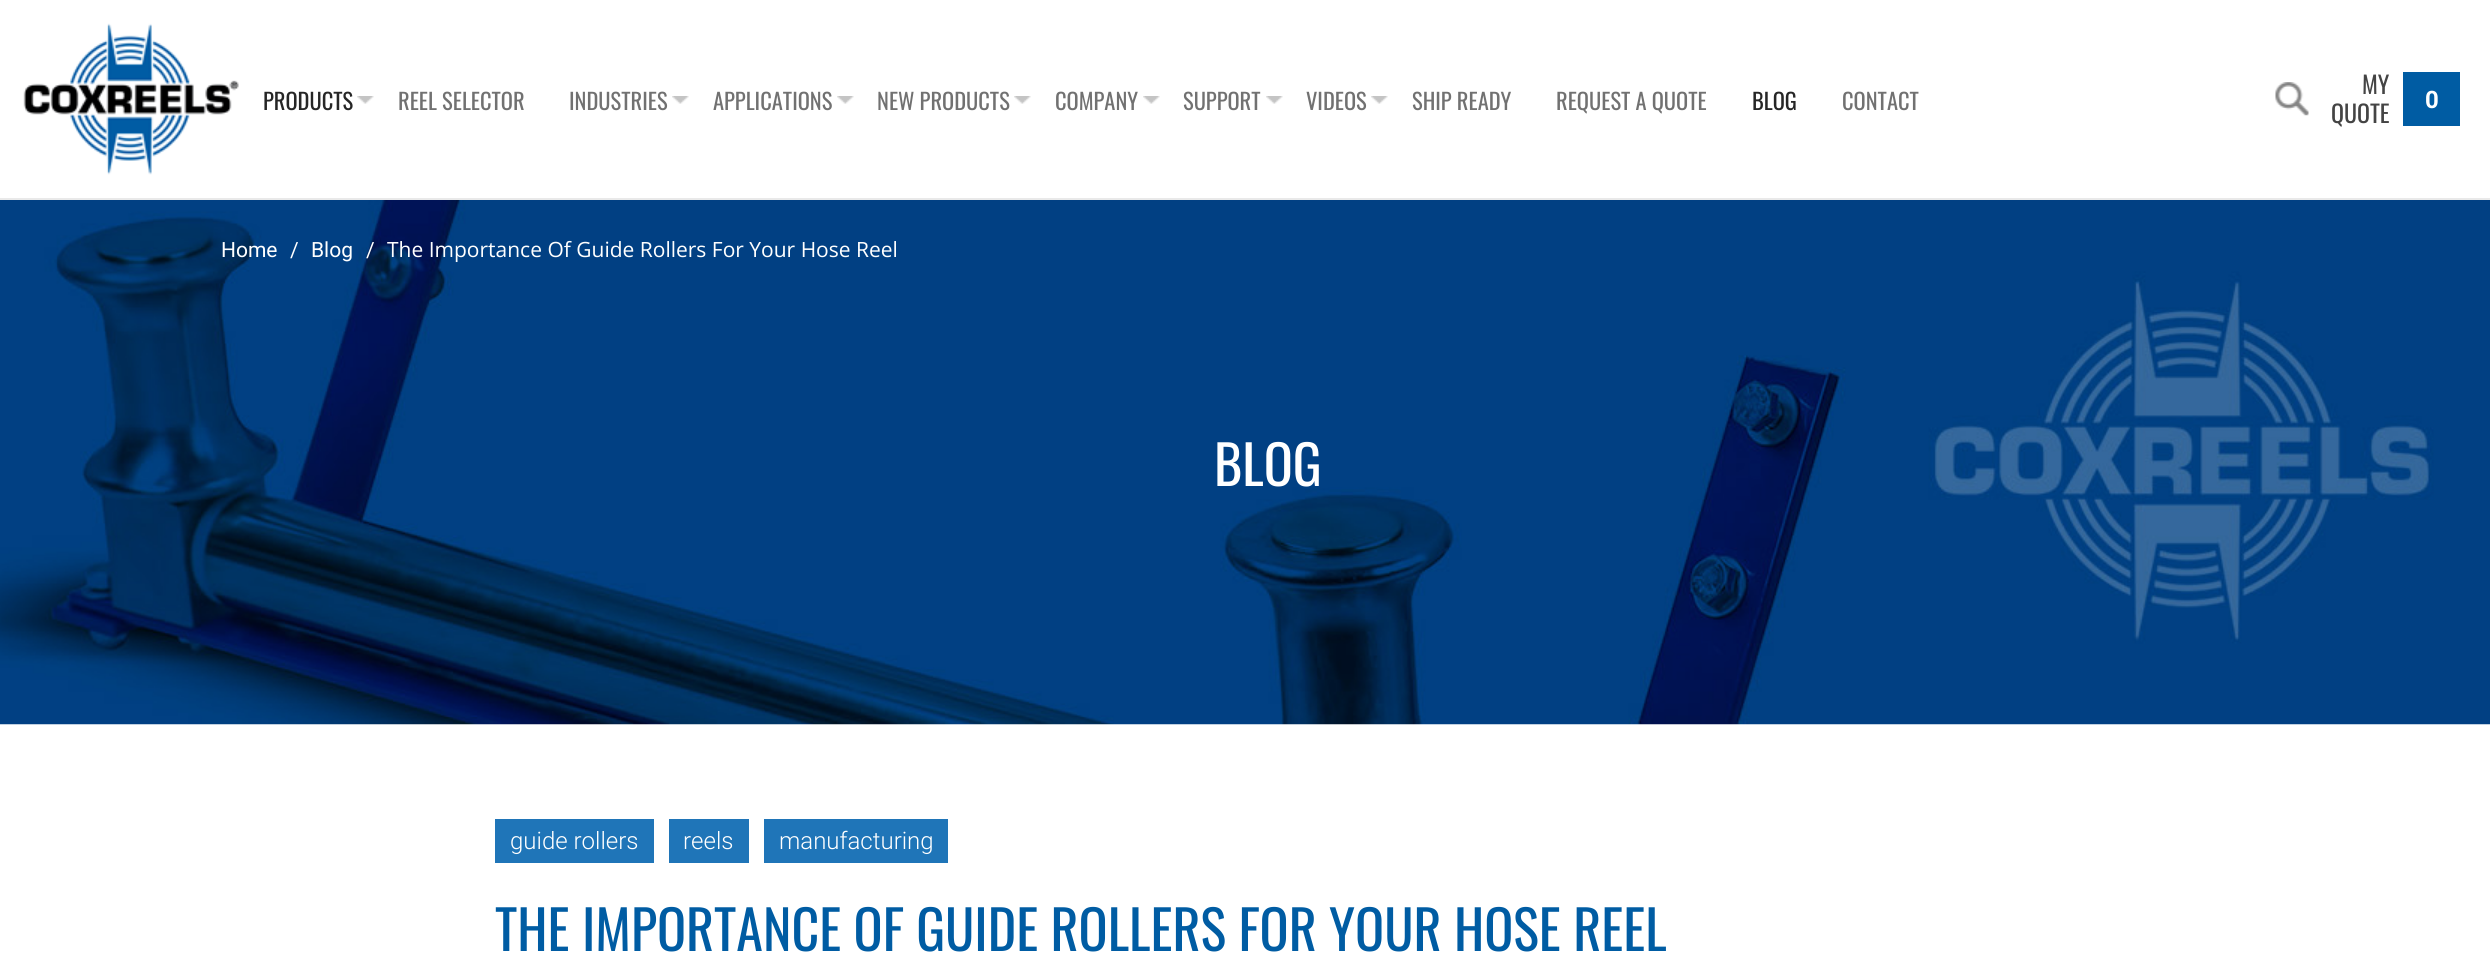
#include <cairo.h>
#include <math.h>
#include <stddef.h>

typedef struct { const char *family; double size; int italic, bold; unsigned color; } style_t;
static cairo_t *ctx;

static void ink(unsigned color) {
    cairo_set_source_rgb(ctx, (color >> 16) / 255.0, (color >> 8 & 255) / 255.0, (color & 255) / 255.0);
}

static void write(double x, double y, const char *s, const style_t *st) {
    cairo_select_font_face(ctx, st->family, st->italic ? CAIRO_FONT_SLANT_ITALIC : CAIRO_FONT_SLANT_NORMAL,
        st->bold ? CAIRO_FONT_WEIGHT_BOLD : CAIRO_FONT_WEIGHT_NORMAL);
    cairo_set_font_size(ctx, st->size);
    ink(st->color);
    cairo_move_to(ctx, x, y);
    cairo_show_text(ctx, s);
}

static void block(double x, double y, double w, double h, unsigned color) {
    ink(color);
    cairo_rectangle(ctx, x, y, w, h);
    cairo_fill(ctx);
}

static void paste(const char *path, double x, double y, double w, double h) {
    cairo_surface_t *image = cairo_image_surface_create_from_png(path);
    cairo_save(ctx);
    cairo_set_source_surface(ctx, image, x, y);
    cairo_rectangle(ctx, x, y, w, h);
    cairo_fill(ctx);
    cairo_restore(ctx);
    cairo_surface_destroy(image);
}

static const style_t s1 = {"Oswald", 22.5, 0, 0, 0x262626};
static const style_t s2 = {"Oswald", 22.5, 0, 0, 0x717171};
static const style_t s3 = {"Oswald", 24, 0, 0, 0x444444};
static const style_t s4 = {"Roboto", 24, 0, 1, 0xffffff};
static const style_t s5 = {"Roboto", 21, 0, 0, 0xffffff};
static const style_t s6 = {"Open Sans", 21, 0, 0, 0xffffff};
static const style_t s7 = {"Oswald", 54, 0, 0, 0xffffff};
static const style_t s8 = {"Roboto Light", 24, 0, 0, 0xffffff};
static const style_t s9 = {"Oswald", 54, 0, 0, 0x005ca3};

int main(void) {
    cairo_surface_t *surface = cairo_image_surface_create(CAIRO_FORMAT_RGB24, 2490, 971);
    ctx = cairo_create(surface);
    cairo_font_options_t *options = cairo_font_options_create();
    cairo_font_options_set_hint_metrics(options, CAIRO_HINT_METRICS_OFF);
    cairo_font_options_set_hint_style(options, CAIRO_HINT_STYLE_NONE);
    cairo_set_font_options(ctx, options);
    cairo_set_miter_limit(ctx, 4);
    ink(0xffffff);
    cairo_paint(ctx);
    block(0, 198, 2490, 2, 0xe9e9e9);
    paste("pic1.png", 23, 23, 216, 152);
    paste("pic2.png", 357, 96, 17, 8);
    write(263, 110, "PRODUCTS", &s1);
    write(398, 110, "REEL SELECTOR", &s2);
    paste("pic2.png", 672, 96, 17, 8);
    write(569, 110, "INDUSTRIES", &s2);
    paste("pic2.png", 837, 96, 17, 8);
    write(713, 110, "APPLICATIONS", &s2);
    paste("pic2.png", 1014, 96, 17, 8);
    write(877, 110, "NEW PRODUCTS", &s2);
    paste("pic2.png", 1143, 96, 17, 8);
    write(1055, 110, "COMPANY", &s2);
    paste("pic2.png", 1266, 96, 17, 8);
    write(1183, 110, "SUPPORT", &s2);
    paste("pic2.png", 1371, 96, 17, 8);
    write(1306, 110, "VIDEOS", &s2);
    write(1412, 110, "SHIP READY", &s2);
    write(1556, 110, "REQUEST A QUOTE", &s2);
    write(1752, 110, "BLOG", &s1);
    write(1842, 110, "CONTACT", &s2);
    paste("pic3.png", 2275, 82, 34, 34);
    write(2362, 94, "MY", &s3);
    write(2331, 123, "QUOTE", &s3);
    block(2403, 72, 57, 54, 0x005ca3);
    write(2425, 108, "0", &s4);
    paste("pic4.png", 0, 200, 2490, 525);
    write(221, 257, "Home", &s5);
    write(290, 257, "/", &s5);
    write(311, 257, "Blog", &s5);
    write(366, 257, "/", &s5);
    write(387, 257, "The Importance Of Guide Rollers For Your Hose Reel", &s6);
    write(1214, 486, "BLOG", &s7);
    block(495, 819, 159, 44, 0x1f75b8);
    write(510, 849, "guide rollers", &s8);
    block(669, 819, 80, 44, 0x1f75b8);
    write(683, 849, "reels", &s8);
    block(764, 819, 184, 44, 0x1f75b8);
    write(779, 849, "manufacturing", &s8);
    write(495, 951, "THE IMPORTANCE OF GUIDE ROLLERS FOR YOUR HOSE REEL", &s9);
    cairo_surface_write_to_png(surface, "screenshot.png");
    cairo_font_options_destroy(options);
    cairo_destroy(ctx);
    cairo_surface_destroy(surface);
    return 0;
}
